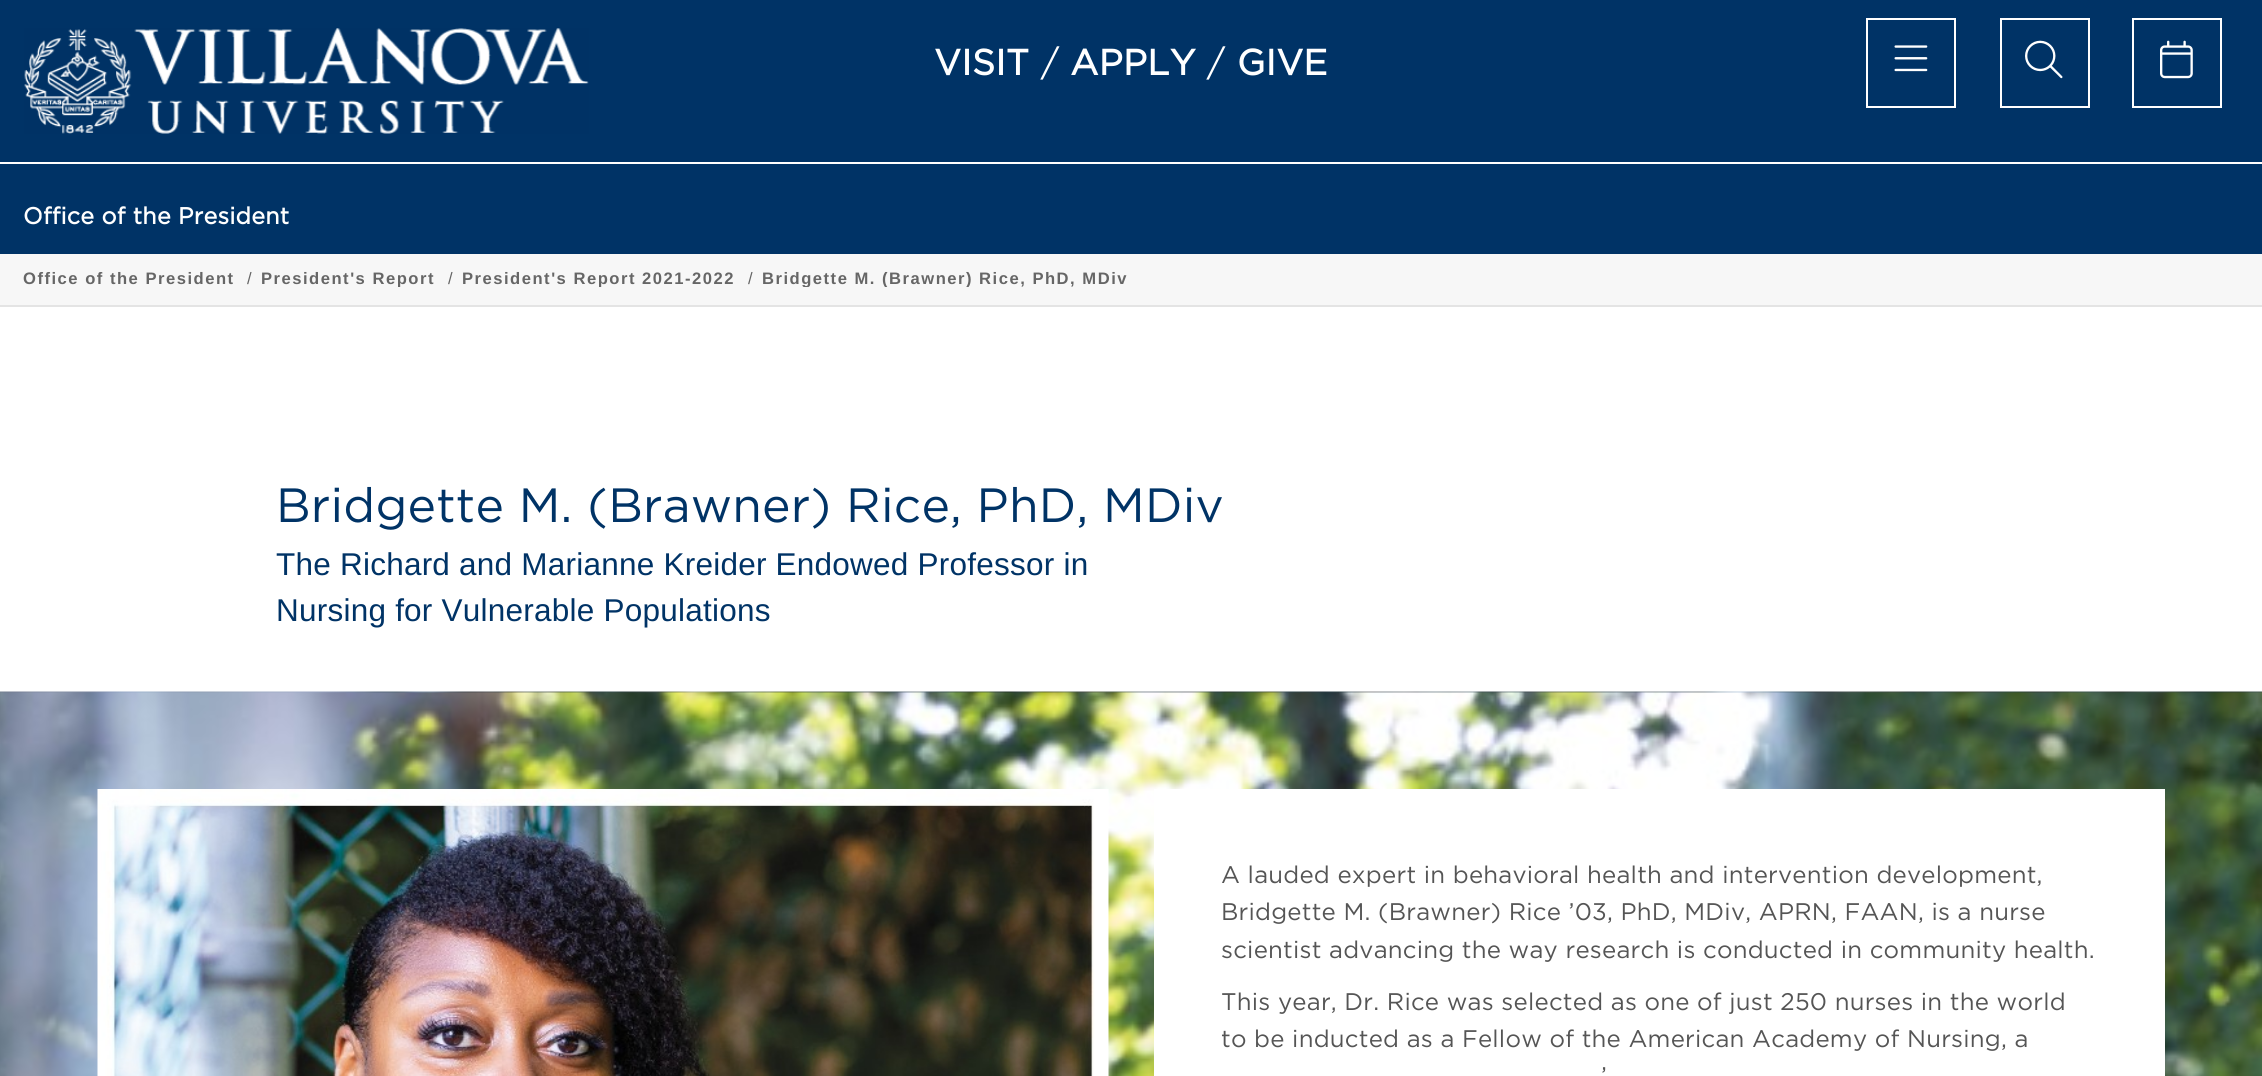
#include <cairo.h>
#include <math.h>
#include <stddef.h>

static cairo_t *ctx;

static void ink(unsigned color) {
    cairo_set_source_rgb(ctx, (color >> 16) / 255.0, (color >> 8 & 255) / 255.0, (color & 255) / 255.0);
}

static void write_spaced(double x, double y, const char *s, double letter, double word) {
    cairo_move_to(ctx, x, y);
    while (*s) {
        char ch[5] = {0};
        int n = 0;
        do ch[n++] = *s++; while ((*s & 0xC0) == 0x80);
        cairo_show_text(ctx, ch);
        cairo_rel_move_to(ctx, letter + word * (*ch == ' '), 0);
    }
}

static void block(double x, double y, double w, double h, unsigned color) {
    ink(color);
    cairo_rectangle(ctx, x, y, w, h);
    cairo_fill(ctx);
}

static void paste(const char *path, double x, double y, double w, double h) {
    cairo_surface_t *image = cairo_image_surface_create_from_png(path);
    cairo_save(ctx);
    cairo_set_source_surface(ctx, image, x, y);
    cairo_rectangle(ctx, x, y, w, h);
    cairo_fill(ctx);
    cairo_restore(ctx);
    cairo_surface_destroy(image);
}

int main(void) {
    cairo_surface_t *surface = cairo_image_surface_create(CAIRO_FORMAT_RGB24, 2262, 1076);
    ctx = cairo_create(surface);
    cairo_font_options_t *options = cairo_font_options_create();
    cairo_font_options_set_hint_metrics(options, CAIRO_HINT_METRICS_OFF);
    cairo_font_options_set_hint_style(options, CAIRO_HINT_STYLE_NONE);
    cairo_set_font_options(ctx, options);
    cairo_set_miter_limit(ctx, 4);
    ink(0xffffff);
    cairo_paint(ctx);
    block(0, 0, 2262, 254, 0x003366);
    paste("pic1.png", 24, 28, 565, 106);
    cairo_select_font_face(ctx, "Gotham", CAIRO_FONT_SLANT_NORMAL, CAIRO_FONT_WEIGHT_BOLD);
    cairo_set_font_size(ctx, 36);
    ink(0xffffff);
    write_spaced(934, 75, "VISIT", 0.23, 0);
    cairo_select_font_face(ctx, "Gotham", CAIRO_FONT_SLANT_NORMAL, CAIRO_FONT_WEIGHT_NORMAL);
    write_spaced(1041, 75, "/", 0.23, 0);
    cairo_select_font_face(ctx, "Gotham", CAIRO_FONT_SLANT_NORMAL, CAIRO_FONT_WEIGHT_BOLD);
    write_spaced(1070, 75, "APPLY", 0.23, 0);
    cairo_select_font_face(ctx, "Gotham", CAIRO_FONT_SLANT_NORMAL, CAIRO_FONT_WEIGHT_NORMAL);
    write_spaced(1207, 75, "/", 0.23, 0);
    cairo_select_font_face(ctx, "Gotham", CAIRO_FONT_SLANT_NORMAL, CAIRO_FONT_WEIGHT_BOLD);
    write_spaced(1237, 75, "GIVE", 0.23, 0);
    cairo_rectangle(ctx, 1867, 19, 88, 88);
    cairo_stroke(ctx);
    paste("pic2.png", 1894, 45, 34, 27);
    cairo_rectangle(ctx, 2001, 19, 88, 88);
    cairo_stroke(ctx);
    paste("pic3.png", 2025, 40, 38, 39);
    cairo_rectangle(ctx, 2133, 19, 88, 88);
    cairo_stroke(ctx);
    paste("pic4.png", 2160, 40, 33, 39);
    block(0, 162, 2262, 2, 0xffffff);
    cairo_set_font_size(ctx, 23.25);
    write_spaced(23, 224, "Office of the President", 0.23, 0);
    block(0, 254, 2262, 51, 0xf7f7f7);
    block(0, 305, 2262, 2, 0xe4e4e4);
    cairo_select_font_face(ctx, "Liberation Sans", CAIRO_FONT_SLANT_NORMAL, CAIRO_FONT_WEIGHT_BOLD);
    cairo_set_font_size(ctx, 16.6);
    ink(0x666666);
    write_spaced(23, 284, "Office of the President", 1.5, 0);
    cairo_select_font_face(ctx, "Liberation Sans", CAIRO_FONT_SLANT_NORMAL, CAIRO_FONT_WEIGHT_NORMAL);
    write_spaced(247, 284, "/", 1.5, 0);
    cairo_save(ctx);
    cairo_rectangle(ctx, 261, 269, 201, 18);
    cairo_clip(ctx);
    cairo_select_font_face(ctx, "Liberation Sans", CAIRO_FONT_SLANT_NORMAL, CAIRO_FONT_WEIGHT_BOLD);
    write_spaced(261, 284, "President's Report", 1.5, 0);
    cairo_restore(ctx);
    write_spaced(448, 284, "/", 1.5, 0);
    cairo_save(ctx);
    cairo_rectangle(ctx, 462, 269, 300, 18);
    cairo_clip(ctx);
    cairo_select_font_face(ctx, "Liberation Sans", CAIRO_FONT_SLANT_NORMAL, CAIRO_FONT_WEIGHT_BOLD);
    write_spaced(462, 284, "President's Report 2021-2022", 1.5, 0);
    cairo_restore(ctx);
    write_spaced(748, 284, "/", 1.5, 0);
    cairo_save(ctx);
    cairo_rectangle(ctx, 762, 269, 365, 18);
    cairo_clip(ctx);
    cairo_select_font_face(ctx, "Liberation Sans", CAIRO_FONT_SLANT_NORMAL, CAIRO_FONT_WEIGHT_BOLD);
    write_spaced(762, 284, "Bridgette M. (Brawner) Rice, PhD, MDiv", 1.5, 0);
    cairo_restore(ctx);
    cairo_select_font_face(ctx, "Gotham", CAIRO_FONT_SLANT_NORMAL, CAIRO_FONT_WEIGHT_NORMAL);
    cairo_set_font_size(ctx, 48);
    ink(0x003366);
    write_spaced(276, 522, "Bridgette M. (Brawner) Rice, PhD, MDiv", 0.23, 0);
    cairo_select_font_face(ctx, "Liberation Sans", CAIRO_FONT_SLANT_NORMAL, CAIRO_FONT_WEIGHT_NORMAL);
    cairo_set_font_size(ctx, 31.5);
    write_spaced(276, 575, "The Richard and Marianne Kreider Endowed Professor in", 0.23, 0);
    write_spaced(276, 621, "Nursing for Vulnerable Populations", 0.23, 0);
    paste("pic5.png", 0, 691, 2262, 385);
    paste("pic6.png", 97, 789, 1012, 287);
    block(1154, 789, 1011, 287, 0xffffff);
    cairo_select_font_face(ctx, "Gotham", CAIRO_FONT_SLANT_NORMAL, CAIRO_FONT_WEIGHT_NORMAL);
    cairo_set_font_size(ctx, 24);
    ink(0x555555);
    write_spaced(1221, 883, "A lauded expert in behavioral health and intervention development,", 0.23, 0);
    write_spaced(1221, 920, "Bridgette M. (Brawner) Rice ’03, PhD, MDiv, APRN, FAAN, is a nurse", 0.23, 0);
    write_spaced(1221, 958, "scientist advancing the way research is conducted in community health.", 0.23, 0);
    write_spaced(1221, 1010, "This year, Dr. Rice was selected as one of just 250 nurses in the world", 0.23, 0);
    write_spaced(1221, 1047, "to be inducted as a Fellow of the American Academy of Nursing, a", 0.23, 0);
    write_spaced(1601, 1084, "’", 0.23, 0);
    cairo_surface_write_to_png(surface, "screenshot.png");
    cairo_font_options_destroy(options);
    cairo_destroy(ctx);
    cairo_surface_destroy(surface);
    return 0;
}
